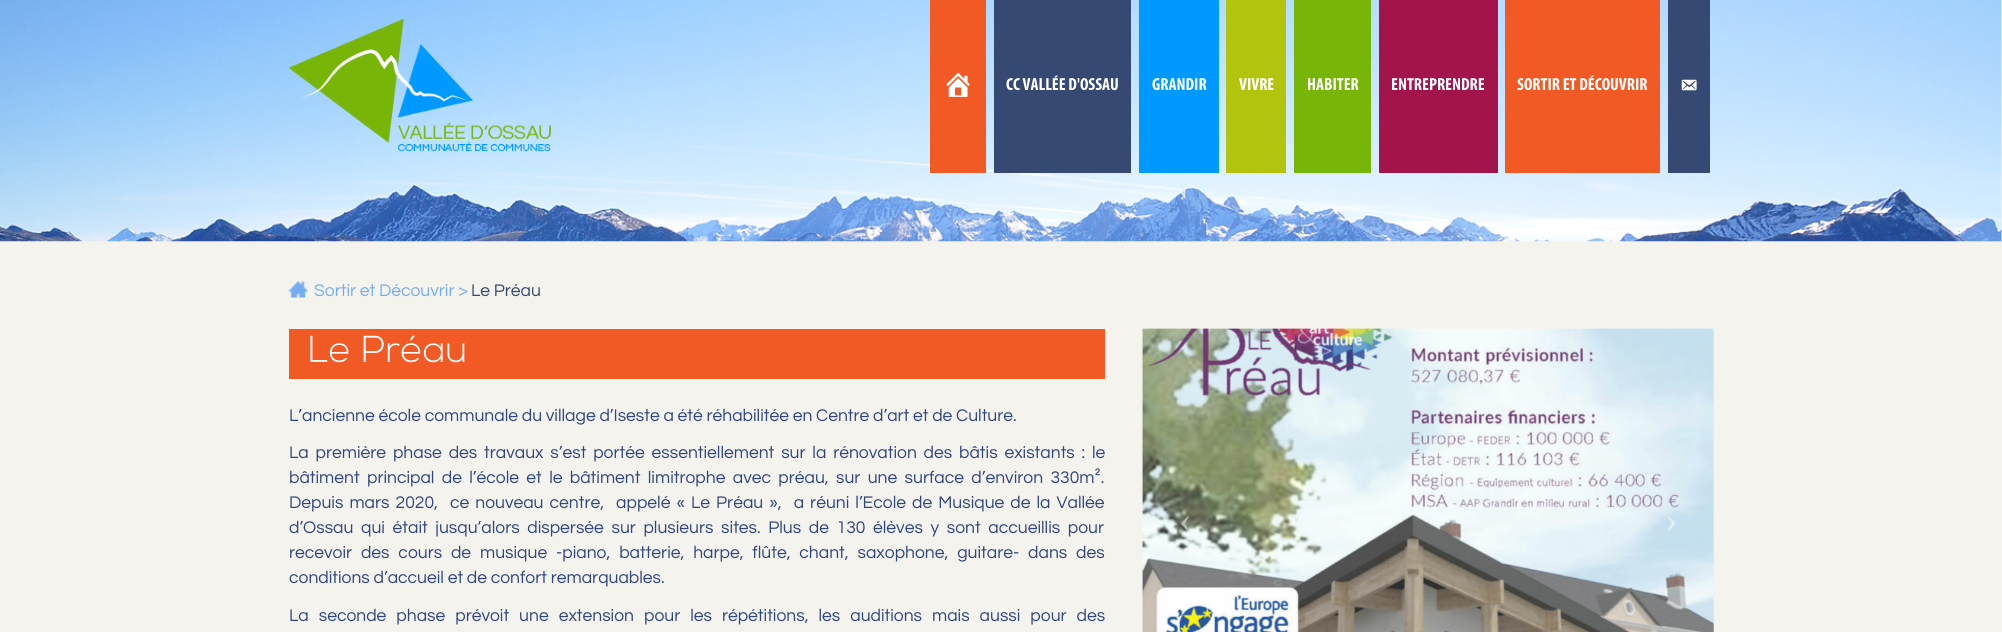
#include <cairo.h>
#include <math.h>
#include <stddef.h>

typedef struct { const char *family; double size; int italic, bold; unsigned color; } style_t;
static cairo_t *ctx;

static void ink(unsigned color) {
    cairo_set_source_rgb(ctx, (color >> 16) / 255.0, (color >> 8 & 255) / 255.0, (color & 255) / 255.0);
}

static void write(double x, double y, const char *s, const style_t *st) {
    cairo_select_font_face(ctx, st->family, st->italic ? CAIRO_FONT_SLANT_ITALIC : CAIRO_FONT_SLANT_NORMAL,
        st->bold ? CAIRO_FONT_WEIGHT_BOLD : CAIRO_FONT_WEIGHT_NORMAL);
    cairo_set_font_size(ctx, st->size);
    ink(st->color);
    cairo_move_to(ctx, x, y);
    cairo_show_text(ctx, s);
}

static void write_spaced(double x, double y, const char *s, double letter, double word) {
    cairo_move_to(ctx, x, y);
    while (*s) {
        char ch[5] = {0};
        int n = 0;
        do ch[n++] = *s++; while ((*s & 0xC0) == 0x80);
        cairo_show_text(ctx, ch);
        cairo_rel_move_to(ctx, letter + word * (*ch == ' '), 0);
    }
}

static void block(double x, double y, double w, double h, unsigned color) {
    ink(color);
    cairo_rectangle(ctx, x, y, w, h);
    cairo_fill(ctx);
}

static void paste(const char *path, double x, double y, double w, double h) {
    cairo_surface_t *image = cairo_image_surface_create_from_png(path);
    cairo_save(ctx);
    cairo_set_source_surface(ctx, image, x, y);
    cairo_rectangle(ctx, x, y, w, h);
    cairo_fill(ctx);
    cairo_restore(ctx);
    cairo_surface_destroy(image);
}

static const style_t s1 = {"Myriad", 17.5, 0, 1, 0xffffff};
static const style_t s2 = {"Questrial", 17.5, 0, 0, 0x74aef1};
static const style_t s3 = {"Questrial", 17.5, 0, 0, 0x354973};
static const style_t s4 = {"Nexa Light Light", 37.5, 0, 0, 0xffffff};
static const style_t s5 = {"Questrial", 17.5, 0, 0, 0x30467e};
static const style_t s6 = {"Liberation Serif", 37.5, 0, 0, 0xb7bbb3};
static const style_t s7 = {"Liberation Serif", 37.5, 0, 0, 0xe2eff6};

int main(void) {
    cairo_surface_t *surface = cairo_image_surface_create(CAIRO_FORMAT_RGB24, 2002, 632);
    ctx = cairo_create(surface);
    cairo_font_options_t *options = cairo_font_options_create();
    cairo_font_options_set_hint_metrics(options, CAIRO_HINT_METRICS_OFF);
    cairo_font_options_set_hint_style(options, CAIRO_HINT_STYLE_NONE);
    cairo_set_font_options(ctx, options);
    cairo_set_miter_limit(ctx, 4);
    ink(0xf4f3ed);
    cairo_paint(ctx);
    paste("pic1.png", 0, 0, 2002, 242);
    paste("pic2.png", 288, 18, 263, 134);
    block(930, 0, 56, 173, 0xf15a24);
    paste("pic3.png", 946, 72, 24, 25);
    block(994, 0, 137, 173, 0x354973);
    write(1006, 90, "CC VALLÉE D'OSSAU", &s1);
    block(1139, 0, 80, 173, 0x0099ff);
    write(1152, 90, "GRANDIR", &s1);
    block(1226, 0, 60, 173, 0xb3c40e);
    write(1239, 90, "VIVRE", &s1);
    block(1294, 0, 77, 173, 0x77b509);
    write(1307, 90, "HABITER", &s1);
    block(1379, 0, 119, 173, 0xa3144a);
    write(1391, 90, "ENTREPRENDRE", &s1);
    block(1505, 0, 155, 173, 0xf15a24);
    write(1517, 90, "SORTIR ET DÉCOUVRIR", &s1);
    block(1668, 0, 42, 173, 0x354973);
    paste("pic4.png", 1681, 79, 16, 12);
    paste("pic5.png", 288, 281, 20, 17);
    write(314, 296, "Sortir et Découvrir >", &s2);
    write(471, 296, "Le Préau", &s3);
    block(289, 329, 816, 50, 0xf15a24);
    write(308, 362, "Le Préau", &s4);
    write(289, 421, "L’ancienne école communale du village d’Iseste a été réhabilitée en Centre d’art et de Culture.", &s5);
    write_spaced(289, 458, "La première phase des travaux s’est portée essentiellement sur la rénovation des bâtis existants : le", 0, 3.1);
    write_spaced(289, 483, "bâtiment principal de l’école et le bâtiment limitrophe avec préau, sur une surface d’environ 330m².", 0, 3.6);
    write_spaced(289, 508, "Depuis mars 2020,  ce nouveau centre,  appelé « Le Préau »,  a réuni l’Ecole de Musique de la Vallée", 0, 2.3);
    write_spaced(289, 533, "d’Ossau qui était jusqu’alors dispersée sur plusieurs sites. Plus de 130 élèves y sont accueillis pour", 0, 3.9);
    write_spaced(289, 558, "recevoir des cours de musique -piano, batterie, harpe, flûte, chant, saxophone, guitare- dans des", 0, 5.1);
    write(289, 583, "conditions d’accueil et de confort remarquables.", &s5);
    write_spaced(289, 621, "La seconde phase prévoit une extension pour les répétitions, les auditions mais aussi pour des", 0, 6.25);
    paste("pic6.png", 1142, 328, 572, 304);
    write(1179, 532, "‹", &s6);
    write(1665, 532, "›", &s7);
    cairo_surface_write_to_png(surface, "screenshot.png");
    cairo_font_options_destroy(options);
    cairo_destroy(ctx);
    cairo_surface_destroy(surface);
    return 0;
}
